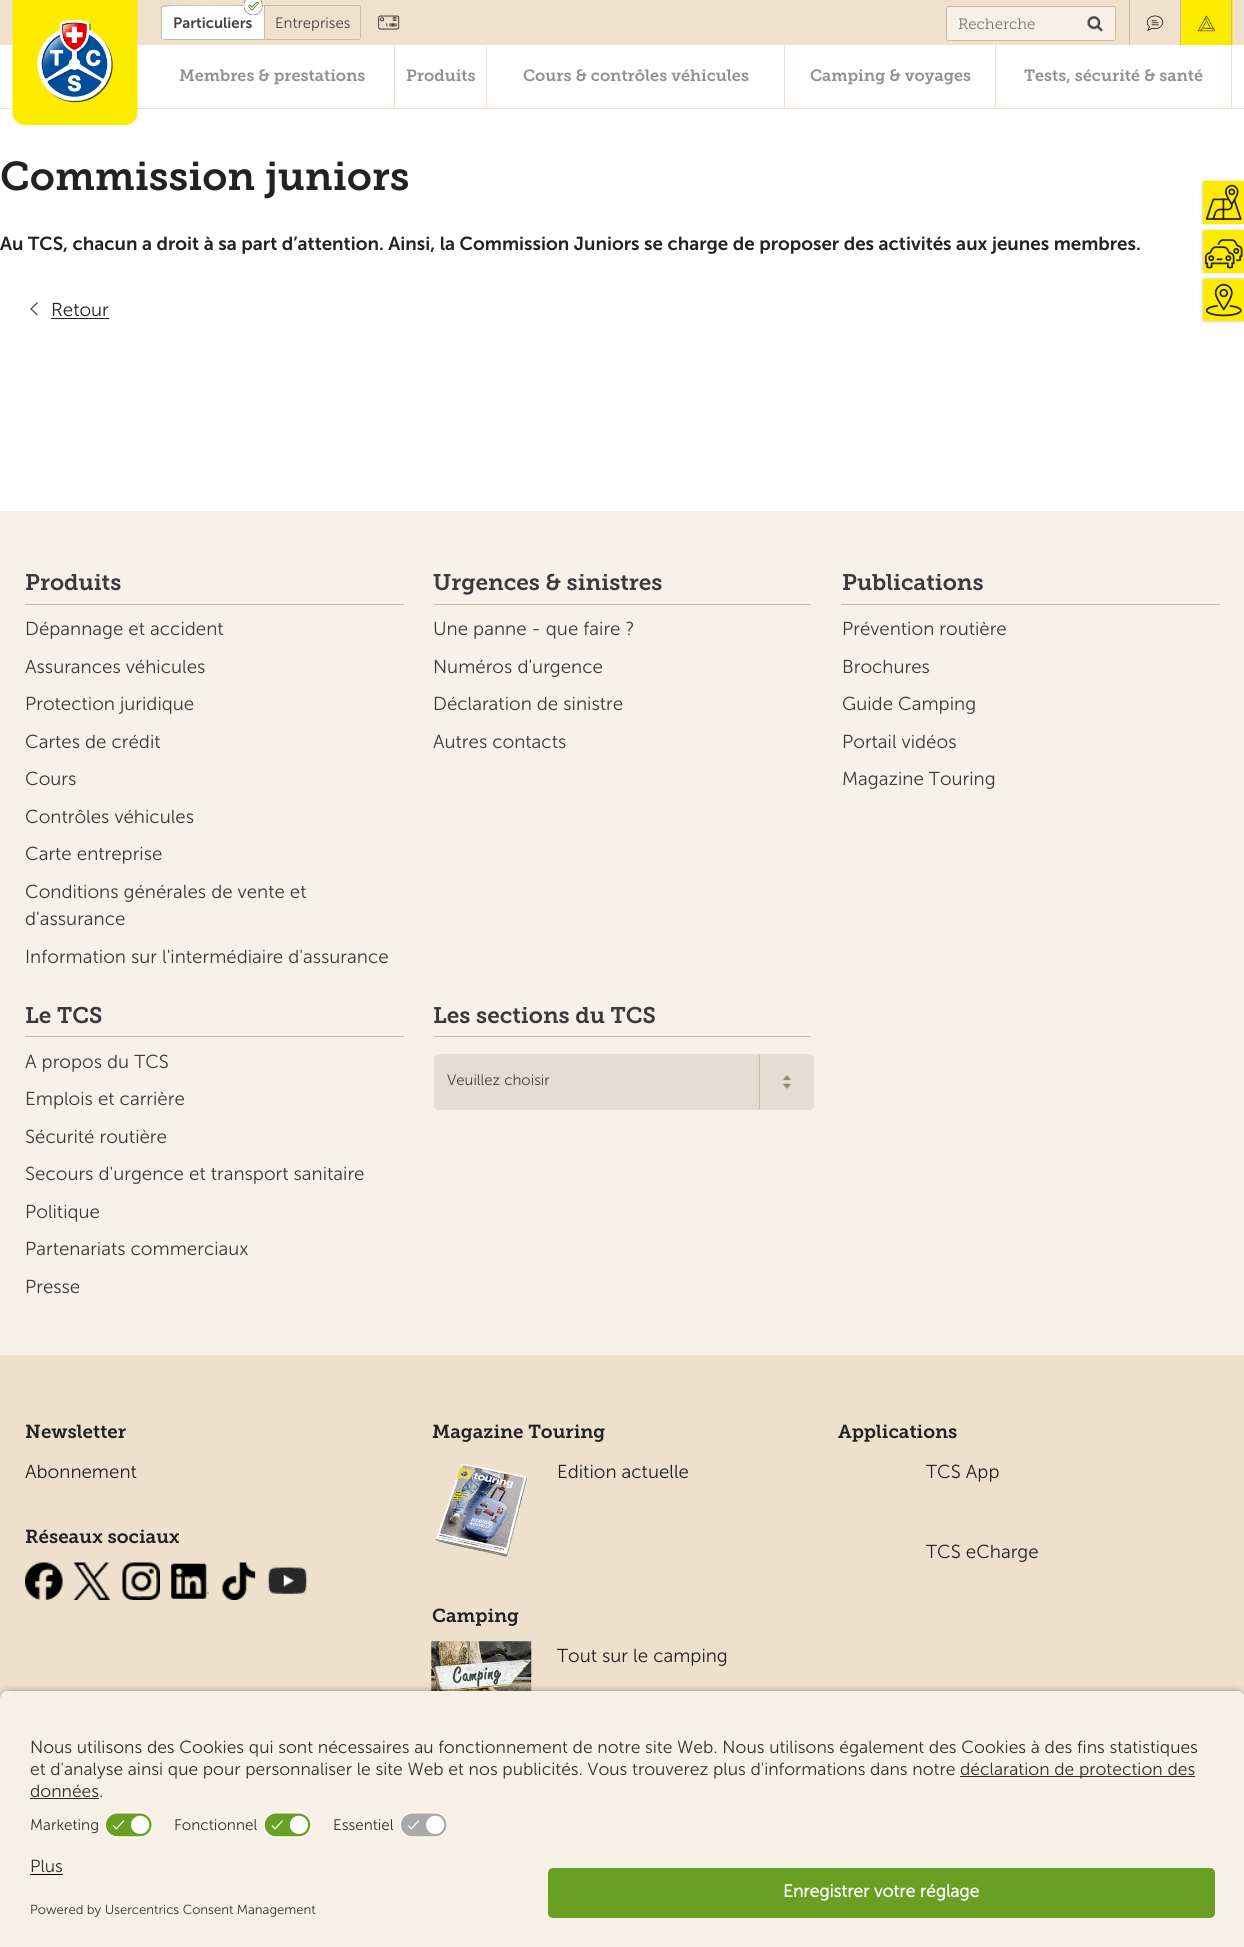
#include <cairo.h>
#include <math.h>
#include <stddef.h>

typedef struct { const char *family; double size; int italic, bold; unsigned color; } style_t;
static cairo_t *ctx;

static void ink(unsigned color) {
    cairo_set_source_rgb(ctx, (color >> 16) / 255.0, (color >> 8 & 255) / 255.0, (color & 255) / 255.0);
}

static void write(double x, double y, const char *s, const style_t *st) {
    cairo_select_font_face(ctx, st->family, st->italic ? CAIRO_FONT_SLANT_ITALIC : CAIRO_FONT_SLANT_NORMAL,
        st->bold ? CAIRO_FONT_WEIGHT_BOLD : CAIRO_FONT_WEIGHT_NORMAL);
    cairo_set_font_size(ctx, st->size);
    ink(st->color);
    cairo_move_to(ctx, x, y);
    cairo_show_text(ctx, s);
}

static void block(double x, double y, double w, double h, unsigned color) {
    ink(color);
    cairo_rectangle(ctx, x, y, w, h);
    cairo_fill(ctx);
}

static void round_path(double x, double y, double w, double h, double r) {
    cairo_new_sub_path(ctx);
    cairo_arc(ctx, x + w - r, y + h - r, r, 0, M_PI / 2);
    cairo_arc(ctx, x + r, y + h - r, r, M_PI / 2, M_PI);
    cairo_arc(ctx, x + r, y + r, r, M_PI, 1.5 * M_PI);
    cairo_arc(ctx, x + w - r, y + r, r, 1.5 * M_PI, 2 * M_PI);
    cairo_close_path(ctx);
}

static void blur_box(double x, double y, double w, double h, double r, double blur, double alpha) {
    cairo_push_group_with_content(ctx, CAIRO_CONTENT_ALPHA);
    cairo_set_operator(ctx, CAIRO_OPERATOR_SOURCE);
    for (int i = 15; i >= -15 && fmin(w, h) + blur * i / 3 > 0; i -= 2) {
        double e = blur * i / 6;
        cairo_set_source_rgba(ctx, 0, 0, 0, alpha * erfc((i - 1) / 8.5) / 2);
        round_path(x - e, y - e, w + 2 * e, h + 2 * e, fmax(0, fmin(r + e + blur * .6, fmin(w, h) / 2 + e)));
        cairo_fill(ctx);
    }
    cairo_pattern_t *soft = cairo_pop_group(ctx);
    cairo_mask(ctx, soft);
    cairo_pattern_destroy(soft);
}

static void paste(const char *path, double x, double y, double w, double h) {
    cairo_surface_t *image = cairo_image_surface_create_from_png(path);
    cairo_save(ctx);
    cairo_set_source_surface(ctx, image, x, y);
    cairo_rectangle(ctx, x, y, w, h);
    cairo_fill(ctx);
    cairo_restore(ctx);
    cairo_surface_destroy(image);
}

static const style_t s1 = {"Museo Sans SemiBold", 15, 0, 0, 0x444444};
static const style_t s2 = {"Museo Sans Light", 15, 0, 0, 0x444444};
static const style_t s3 = {"Museo Slab Light", 15, 0, 0, 0x757575};
static const style_t s4 = {"Museo Slab SemiBold", 16.25, 0, 0, 0x919191};
static const style_t s5 = {"Museo Slab SemiBold", 40, 0, 0, 0x222222};
static const style_t s6 = {"Museo Sans SemiBold", 18.75, 0, 0, 0x222222};
static const style_t s7 = {"Museo Sans Light", 18.75, 0, 0, 0x222222};
static const style_t s8 = {"Museo Slab SemiBold", 22.5, 0, 0, 0x3a3a3a};
static const style_t s9 = {"Museo Sans Light", 18.75, 0, 0, 0x3a3a3a};
static const style_t s10 = {"Museo Slab SemiBold", 18.75, 0, 0, 0x222222};
static const style_t s11 = {"Museo Sans Light", 17.5, 0, 0, 0x303030};
static const style_t s12 = {"Museo Sans Light", 15.25, 0, 0, 0x303030};
static const style_t s13 = {"Museo Sans Light", 13.1, 0, 0, 0x303030};
static const style_t s14 = {"Museo Sans", 17.5, 0, 1, 0xffffff};

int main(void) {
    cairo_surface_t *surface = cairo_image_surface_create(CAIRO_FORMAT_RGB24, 1244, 1947);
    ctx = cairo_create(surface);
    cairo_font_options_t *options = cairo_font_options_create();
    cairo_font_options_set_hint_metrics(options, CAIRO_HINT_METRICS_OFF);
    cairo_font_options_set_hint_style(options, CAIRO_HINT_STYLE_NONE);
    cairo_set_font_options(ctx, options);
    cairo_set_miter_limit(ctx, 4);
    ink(0xffffff);
    cairo_paint(ctx);
    block(0, 0, 1244, 45, 0xefe1cd);
    block(0, 108, 1244, 1, 0xefe1cd);
    paste("pic1.png", 12, 0, 126, 125);
    ink(0xffffff);
    cairo_new_path(ctx);
    cairo_move_to(ctx, 163.5, 5);
    cairo_line_to(ctx, 264, 5);
    cairo_line_to(ctx, 264, 40);
    cairo_line_to(ctx, 163.5, 40);
    cairo_curve_to(ctx, 162, 40, 161, 39, 161, 37.5);
    cairo_line_to(ctx, 161, 7.5);
    cairo_curve_to(ctx, 161, 6, 162, 5, 163.5, 5);
    cairo_close_path(ctx);
    cairo_fill(ctx);
    ink(0xcbbba5);
    cairo_new_path(ctx);
    cairo_move_to(ctx, 164, 5);
    cairo_line_to(ctx, 162, 6);
    cairo_line_to(ctx, 163, 7);
    cairo_curve_to(ctx, 164, 5, 252, 6, 262, 6);
    cairo_line_to(ctx, 262, 7);
    cairo_line_to(ctx, 264, 5);
    cairo_close_path(ctx);
    cairo_fill(ctx);
    cairo_new_path(ctx);
    cairo_move_to(ctx, 264, 40);
    cairo_line_to(ctx, 262, 38);
    cairo_line_to(ctx, 262, 39);
    cairo_line_to(ctx, 164, 39);
    cairo_line_to(ctx, 163, 39);
    cairo_line_to(ctx, 162, 39);
    cairo_line_to(ctx, 164, 40);
    cairo_close_path(ctx);
    cairo_fill(ctx);
    cairo_new_path(ctx);
    cairo_move_to(ctx, 161, 6.5);
    cairo_line_to(ctx, 162, 5.5);
    cairo_line_to(ctx, 163, 6.5);
    cairo_line_to(ctx, 162, 8);
    cairo_line_to(ctx, 162, 38);
    cairo_line_to(ctx, 162.5, 38.5);
    cairo_line_to(ctx, 162, 39.5);
    cairo_line_to(ctx, 161, 39);
    cairo_close_path(ctx);
    cairo_fill(ctx);
    paste("pic2.png", 244, 0, 19, 15);
    write(173, 28, "Particuliers", &s1);
    cairo_new_path(ctx);
    cairo_move_to(ctx, 264.5, 5.5);
    cairo_line_to(ctx, 358.5, 5.5);
    cairo_curve_to(ctx, 359.5, 5.5, 360.5, 6.5, 360.5, 7.5);
    cairo_line_to(ctx, 360.5, 37.5);
    cairo_curve_to(ctx, 360.5, 38.5, 359.5, 39.5, 358.5, 39.5);
    cairo_line_to(ctx, 264.5, 39.5);
    cairo_close_path(ctx);
    ink(0xcbbba5);
    cairo_set_line_width(ctx, 1);
    cairo_stroke(ctx);
    write(275, 28, "Entreprises", &s2);
    paste("pic3.png", 378, 15, 22, 15);
    block(1129, 0, 1, 45, 0xcbbaa8);
    ink(0xf8efe6);
    round_path(946, 6, 170, 35, 2.5);
    cairo_fill(ctx);
    paste("pic4.png", 1087, 16, 16, 16);
    round_path(946.5, 6.5, 169, 34, 2);
    ink(0xcbbba5);
    cairo_stroke(ctx);
    write(958, 29, "Recherche", &s3);
    block(1180, 0, 1, 45, 0xcbbaa8);
    paste("pic5.png", 1146, 15, 18, 16);
    block(1181, 0, 52, 45, 0xffeb02);
    block(1231, 0, 1, 45, 0xcbbaa8);
    paste("pic6.png", 1197, 15, 18, 17);
    block(394, 45, 1, 63, 0xeee0cc);
    write(179, 81, "Membres & prestations", &s4);
    block(486, 45, 1, 63, 0xeee0cc);
    write(406, 81, "Produits", &s4);
    block(784, 45, 1, 63, 0xeee0cc);
    write(523, 81, "Cours & contrôles véhicules", &s4);
    block(995, 45, 1, 63, 0xeee0cc);
    write(810, 81, "Camping & voyages", &s4);
    block(1231, 45, 1, 63, 0xeee0cc);
    write(1024, 81, "Tests, sécurité & santé", &s4);
    write(0, 190, "Commission juniors", &s5);
    write(0, 250, "Au TCS, chacun a droit à sa part d’attention. Ainsi, la Commission Juniors se charge de proposer des activités aux jeunes membres.", &s6);
    cairo_new_path(ctx);
    cairo_move_to(ctx, 37.5, 302.5);
    cairo_line_to(ctx, 31, 309);
    cairo_line_to(ctx, 37.5, 315);
    ink(0x444444);
    cairo_set_line_width(ctx, 1.2);
    cairo_stroke(ctx);
    write(51, 316, "Retour", &s7);
    block(51, 318, 58, 1, 0x222222);
    ink(0x000000);
    blur_box(1205, 184, 38, 37, 0, 2.5, 0.75);
    block(1203, 181, 41, 43, 0xffeb00);
    paste("pic7.png", 1205, 184, 37, 36);
    ink(0x000000);
    blur_box(1205, 233, 38, 37, 0, 2.5, 0.75);
    block(1203, 230, 41, 43, 0xffeb00);
    paste("pic8.png", 1205, 239, 38, 30);
    ink(0x000000);
    blur_box(1205, 281, 38, 38, 0, 2.5, 0.75);
    block(1203, 279, 41, 42, 0xffeb00);
    paste("pic9.png", 1205, 283, 37, 34);
    block(0, 511, 1244, 844, 0xf7f2e9);
    block(25, 604, 379, 1, 0xcbbba5);
    write(25, 590, "Produits", &s8);
    write(25, 635, "Dépannage et accident", &s9);
    write(25, 673, "Assurances véhicules", &s9);
    write(25, 710, "Protection juridique", &s9);
    write(25, 748, "Cartes de crédit", &s9);
    write(25, 785, "Cours", &s9);
    write(25, 823, "Contrôles véhicules", &s9);
    write(25, 860, "Carte entreprise", &s9);
    write(25, 898, "Conditions générales de vente et", &s9);
    write(25, 925, "d'assurance", &s9);
    write(25, 963, "Information sur l'intermédiaire d'assurance", &s9);
    block(434, 604, 377, 1, 0xcbbba5);
    write(433, 590, "Urgences & sinistres", &s8);
    write(433, 635, "Une panne - que faire ?", &s9);
    write(433, 673, "Numéros d'urgence", &s9);
    write(433, 710, "Déclaration de sinistre", &s9);
    write(433, 748, "Autres contacts", &s9);
    block(841, 604, 379, 1, 0xcbbba5);
    write(842, 590, "Publications", &s8);
    write(842, 635, "Prévention routière", &s9);
    write(842, 673, "Brochures", &s9);
    write(842, 710, "Guide Camping", &s9);
    write(842, 748, "Portail vidéos", &s9);
    write(842, 785, "Magazine Touring", &s9);
    block(25, 1036, 379, 1, 0xcbbba5);
    write(25, 1023, "Le TCS", &s8);
    write(25, 1068, "A propos du TCS", &s9);
    write(25, 1105, "Emplois et carrière", &s9);
    write(25, 1143, "Sécurité routière", &s9);
    write(25, 1180, "Secours d'urgence et transport sanitaire", &s9);
    write(25, 1218, "Politique", &s9);
    write(25, 1255, "Partenariats commerciaux", &s9);
    write(25, 1293, "Presse", &s9);
    block(434, 1036, 377, 1, 0xcbbba5);
    write(433, 1023, "Les sections du TCS", &s8);
    ink(0xe3ddd3);
    round_path(434.5, 1054.5, 379, 55, 4.5);
    cairo_fill_preserve(ctx);
    cairo_set_line_width(ctx, 1);
    cairo_stroke(ctx);
    write(447, 1085, "Veuillez choisir", &s2);
    paste("pic10.png", 782, 1075, 10, 14);
    block(759, 1055, 1, 54, 0xcbbba5);
    block(0, 1355, 1244, 345, 0xede1cd);
    write(25, 1438, "Newsletter", &s10);
    write(25, 1478, "Abonnement", &s7);
    write(25, 1543, "Réseaux sociaux", &s10);
    paste("pic11.png", 25, 1562, 38, 38);
    paste("pic12.png", 73, 1562, 38, 38);
    paste("pic13.png", 122, 1562, 38, 38);
    paste("pic14.png", 171, 1563, 38, 36);
    paste("pic15.png", 222, 1562, 34, 38);
    paste("pic16.png", 268, 1567, 39, 27);
    write(432, 1438, "Magazine Touring", &s10);
    paste("pic17.png", 435, 1464, 92, 93);
    write(557, 1478, "Edition actuelle", &s7);
    write(432, 1622, "Camping", &s10);
    paste("pic18.png", 431, 1641, 101, 50);
    write(557, 1662, "Tout sur le camping", &s7);
    write(838, 1438, "Applications", &s10);
    write(926, 1478, "TCS App", &s7);
    write(926, 1558, "TCS eCharge", &s7);
    ink(0x000000);
    blur_box(0, 1694, 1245, 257, 10, 4.5, 0.8);
    cairo_save(ctx);
    cairo_new_path(ctx);
    cairo_move_to(ctx, 10, 1690);
    cairo_line_to(ctx, 1235, 1690);
    cairo_curve_to(ctx, 1240.5, 1690, 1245, 1694.5, 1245, 1700);
    cairo_line_to(ctx, 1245, 1858);
    cairo_line_to(ctx, 0, 1858);
    cairo_line_to(ctx, 0, 1700);
    cairo_curve_to(ctx, 0, 1694.5, 4.5, 1690, 10, 1690);
    cairo_close_path(ctx);
    cairo_clip(ctx);
    block(0, 1691, 1244, 167, 0xf6f0e6);
    block(0, 1691, 1244, 117, 0xf6f0e6);
    cairo_restore(ctx);
    write(30, 1753, "Nous utilisons des Cookies qui sont nécessaires au fonctionnement de notre site Web. Nous utilisons également des Cookies à des fins statistiques", &s11);
    write(30, 1775, "et d'analyse ainsi que pour personnaliser le site Web et nos publicités. Vous trouverez plus d'informations dans notre", &s11);
    block(960, 1776, 235, 1, 0x303030);
    write(960, 1775, "déclaration de protection des", &s11);
    write(30, 1797, "données.", &s11);
    block(30, 1798, 69, 1, 0x303030);
    write(30, 1830, "Marketing", &s12);
    paste("pic19.png", 105, 1812, 48, 26);
    write(174, 1830, "Fonctionnel", &s12);
    paste("pic20.png", 263, 1812, 49, 26);
    write(333, 1830, "Essentiel", &s12);
    paste("pic21.png", 400, 1812, 48, 26);
    block(0, 1858, 1244, 89, 0xf6f0e6);
    write(30, 1872, "Plus", &s11);
    block(30, 1874, 33, 1, 0x000000);
    write(30, 1914, "Powered by Usercentrics Consent Management", &s13);
    ink(0x69a023);
    round_path(548, 1868, 667, 50, 5);
    cairo_fill(ctx);
    write(783, 1897, "Enregistrer votre réglage", &s14);
    cairo_surface_write_to_png(surface, "screenshot.png");
    cairo_font_options_destroy(options);
    cairo_destroy(ctx);
    cairo_surface_destroy(surface);
    return 0;
}
